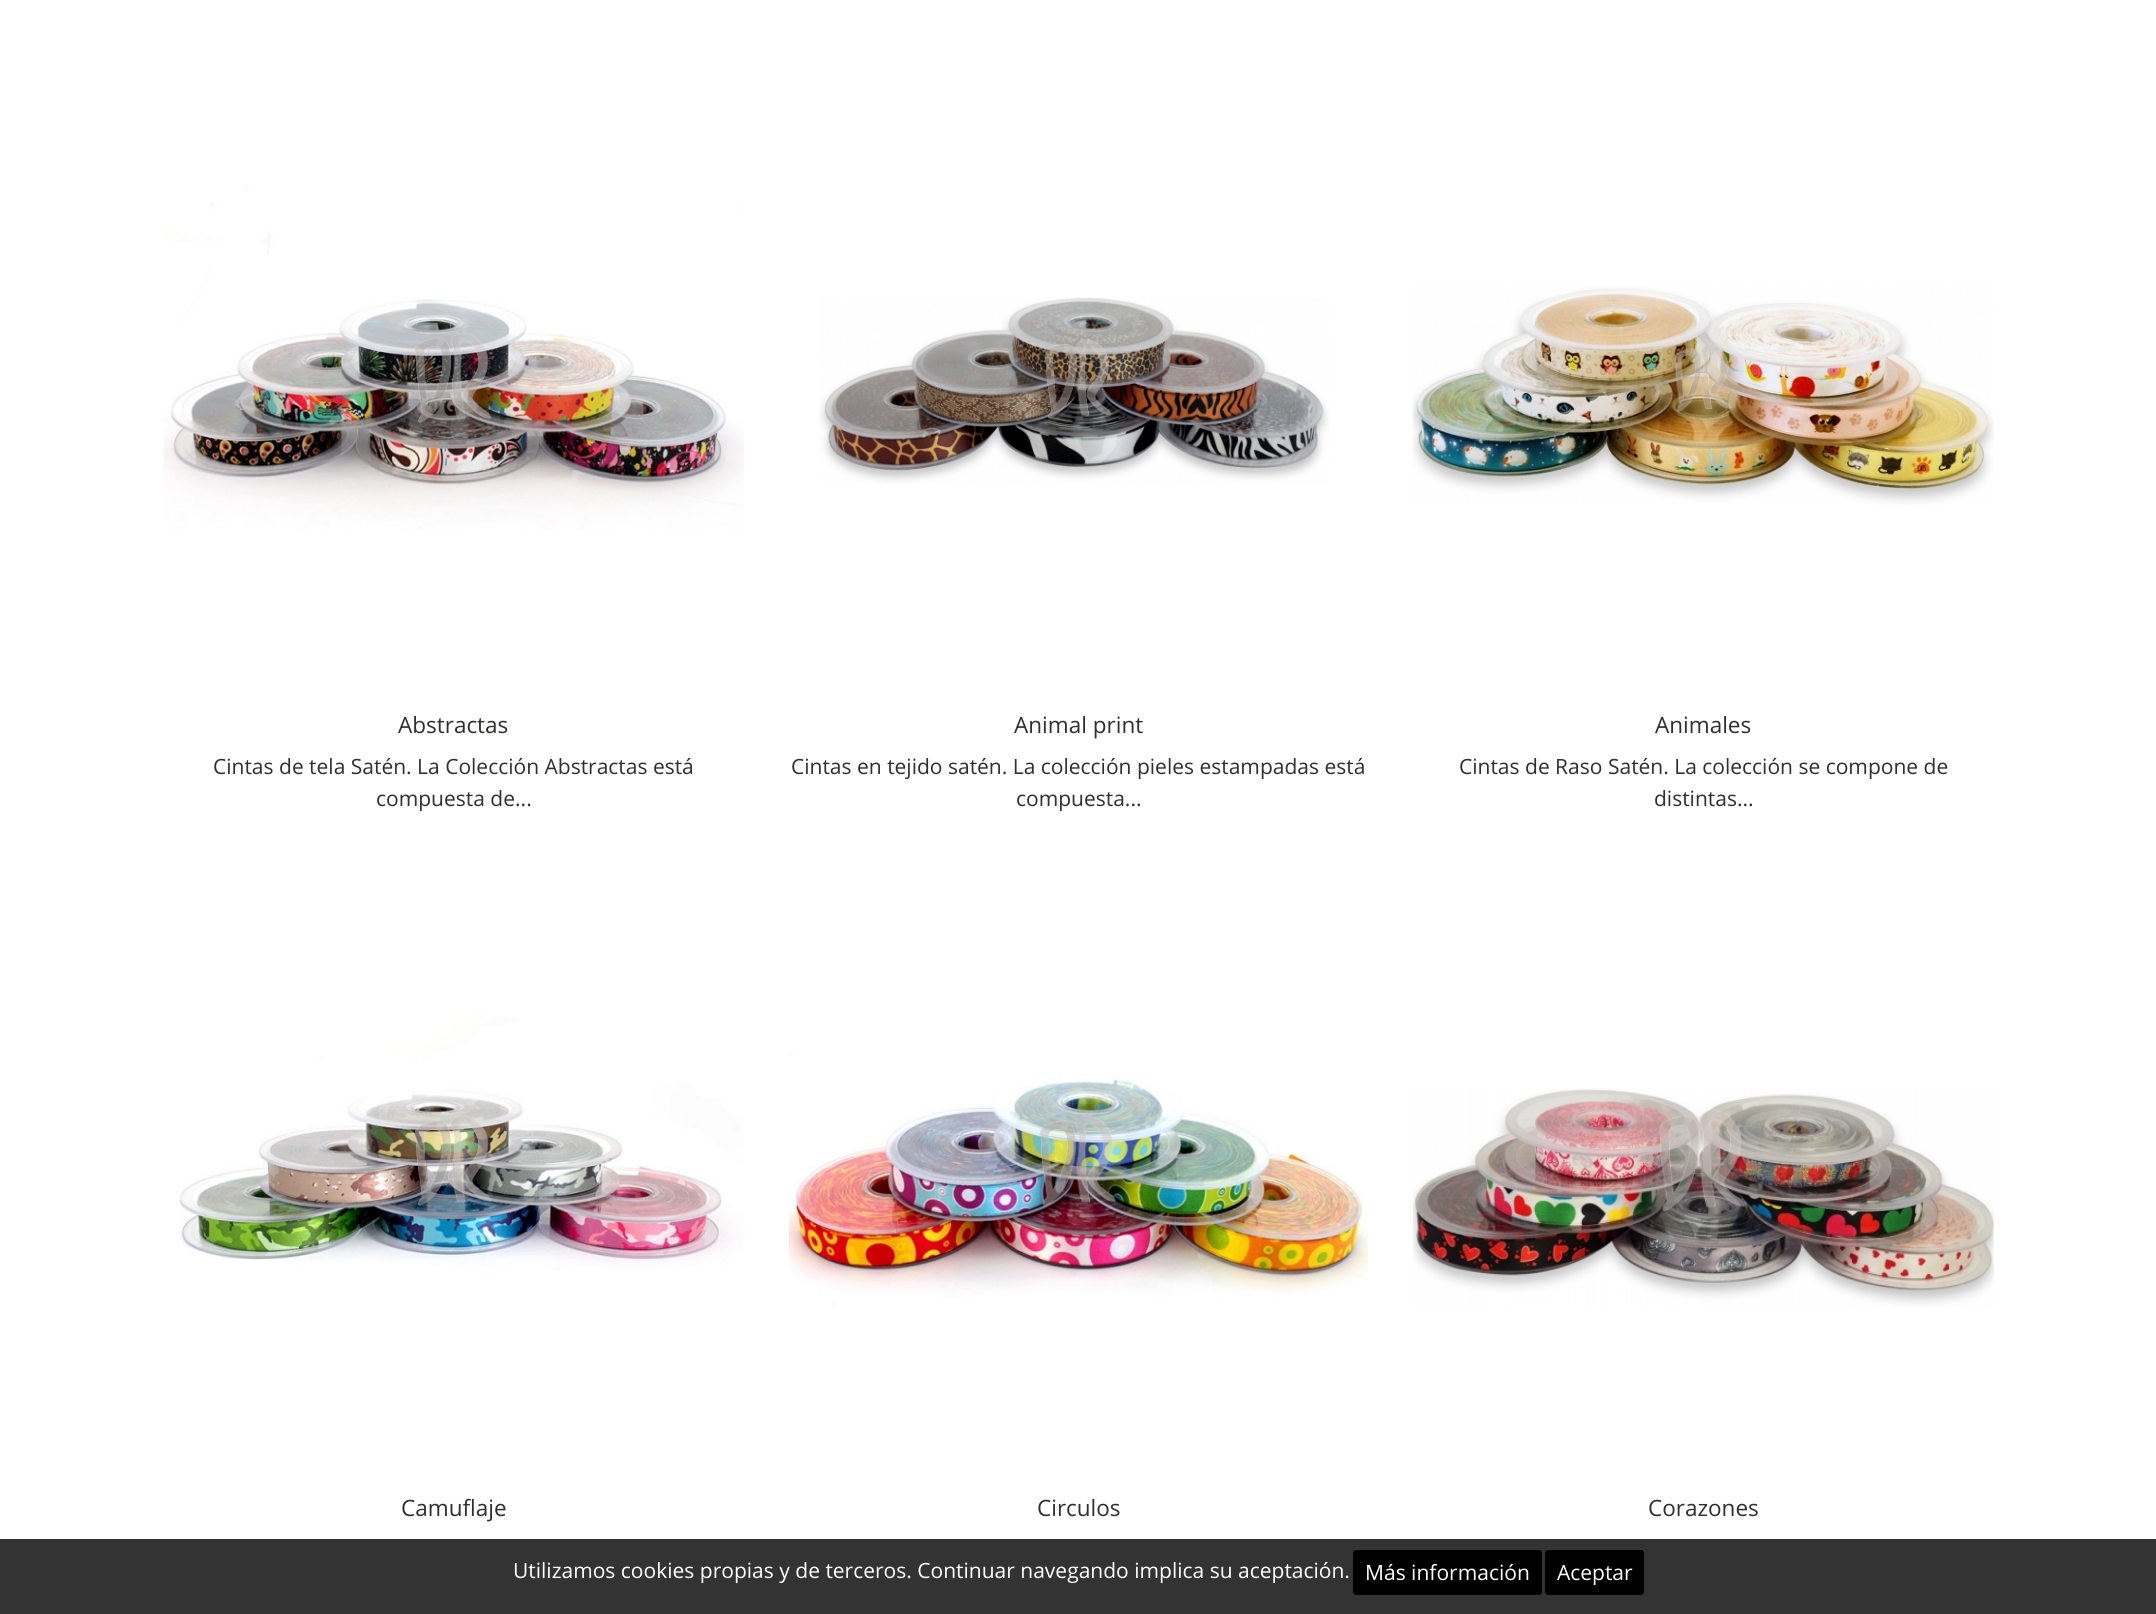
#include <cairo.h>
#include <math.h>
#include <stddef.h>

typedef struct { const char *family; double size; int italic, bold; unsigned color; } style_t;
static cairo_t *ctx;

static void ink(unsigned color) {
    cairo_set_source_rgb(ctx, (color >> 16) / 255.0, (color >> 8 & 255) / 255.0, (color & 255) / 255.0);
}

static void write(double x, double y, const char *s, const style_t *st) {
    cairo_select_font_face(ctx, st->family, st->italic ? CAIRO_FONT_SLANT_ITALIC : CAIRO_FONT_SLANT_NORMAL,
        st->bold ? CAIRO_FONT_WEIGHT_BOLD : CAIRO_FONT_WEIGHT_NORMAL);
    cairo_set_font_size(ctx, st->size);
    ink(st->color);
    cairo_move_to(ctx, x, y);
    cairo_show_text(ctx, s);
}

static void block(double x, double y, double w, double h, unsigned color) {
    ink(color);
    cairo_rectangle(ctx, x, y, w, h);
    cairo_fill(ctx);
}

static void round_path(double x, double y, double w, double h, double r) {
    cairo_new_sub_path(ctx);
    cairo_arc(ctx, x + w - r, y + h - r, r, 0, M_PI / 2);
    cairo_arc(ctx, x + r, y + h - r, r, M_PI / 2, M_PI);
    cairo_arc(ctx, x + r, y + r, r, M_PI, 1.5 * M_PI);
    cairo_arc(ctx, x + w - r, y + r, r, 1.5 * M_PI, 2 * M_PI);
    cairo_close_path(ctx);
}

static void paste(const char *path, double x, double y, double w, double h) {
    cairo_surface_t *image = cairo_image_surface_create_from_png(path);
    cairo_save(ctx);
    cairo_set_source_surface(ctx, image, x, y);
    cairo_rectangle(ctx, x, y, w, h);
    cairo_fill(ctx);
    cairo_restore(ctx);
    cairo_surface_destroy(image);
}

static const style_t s1 = {"Open Sans", 22.5, 0, 0, 0x2f2f2d};
static const style_t s2 = {"Open Sans", 21, 0, 0, 0x2f2f2d};
static const style_t s3 = {"Open Sans", 21, 0, 0, 0xffffff};

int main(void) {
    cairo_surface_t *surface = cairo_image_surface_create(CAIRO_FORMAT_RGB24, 2156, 1614);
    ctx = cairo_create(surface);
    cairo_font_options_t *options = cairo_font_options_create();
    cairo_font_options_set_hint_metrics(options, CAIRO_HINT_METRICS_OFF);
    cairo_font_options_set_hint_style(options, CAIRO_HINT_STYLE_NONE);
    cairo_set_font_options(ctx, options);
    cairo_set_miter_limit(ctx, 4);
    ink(0xffffff);
    cairo_paint(ctx);
    paste("pic1.png", 163, 187, 581, 344);
    write(398, 733, "Abstractas", &s1);
    write(213, 774, "Cintas de tela Satén. La Colección Abstractas está", &s2);
    write(376, 806, "compuesta de...", &s2);
    paste("pic2.png", 819, 297, 511, 187);
    write(1014, 733, "Animal print", &s1);
    write(791, 774, "Cintas en tejido satén. La colección pieles estampadas está", &s2);
    write(1016, 806, "compuesta...", &s2);
    paste("pic3.png", 1413, 286, 581, 219);
    write(1655, 733, "Animales", &s1);
    write(1459, 774, "Cintas de Raso Satén. La colección se compone de", &s2);
    write(1654, 806, "distintas...", &s2);
    paste("pic4.png", 179, 1009, 565, 261);
    write(401, 1516, "Camuflaje", &s1);
    paste("pic5.png", 789, 1052, 579, 257);
    write(1037, 1516, "Circulos", &s1);
    paste("pic6.png", 1413, 1088, 581, 219);
    write(1648, 1516, "Corazones", &s1);
    block(0, 1539, 2156, 75, 0x333333);
    write(513, 1578, "Utilizamos cookies propias y de terceros. Continuar navegando implica su aceptación.", &s3);
    ink(0x000000);
    round_path(1353, 1550, 189, 45, 3);
    cairo_fill(ctx);
    write(1365, 1580, "Más información", &s3);
    ink(0x000000);
    round_path(1545, 1550, 99, 45, 3);
    cairo_fill(ctx);
    write(1557, 1580, "Aceptar", &s3);
    cairo_surface_write_to_png(surface, "screenshot.png");
    cairo_font_options_destroy(options);
    cairo_destroy(ctx);
    cairo_surface_destroy(surface);
    return 0;
}
